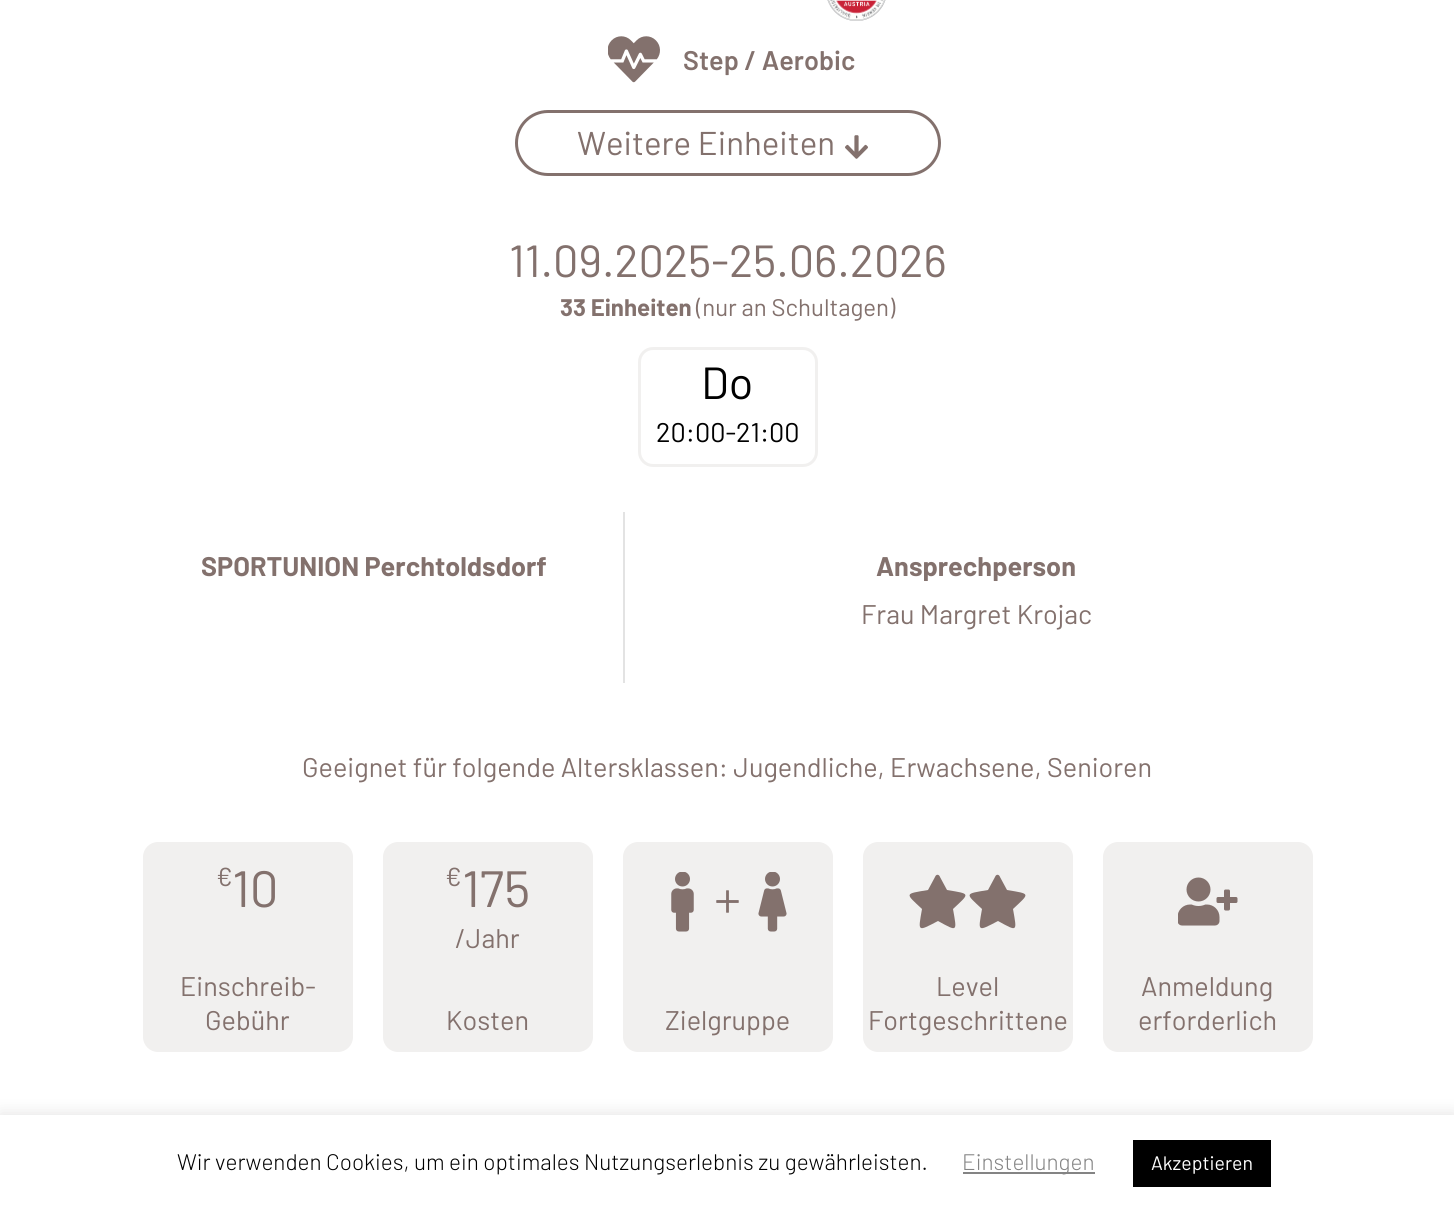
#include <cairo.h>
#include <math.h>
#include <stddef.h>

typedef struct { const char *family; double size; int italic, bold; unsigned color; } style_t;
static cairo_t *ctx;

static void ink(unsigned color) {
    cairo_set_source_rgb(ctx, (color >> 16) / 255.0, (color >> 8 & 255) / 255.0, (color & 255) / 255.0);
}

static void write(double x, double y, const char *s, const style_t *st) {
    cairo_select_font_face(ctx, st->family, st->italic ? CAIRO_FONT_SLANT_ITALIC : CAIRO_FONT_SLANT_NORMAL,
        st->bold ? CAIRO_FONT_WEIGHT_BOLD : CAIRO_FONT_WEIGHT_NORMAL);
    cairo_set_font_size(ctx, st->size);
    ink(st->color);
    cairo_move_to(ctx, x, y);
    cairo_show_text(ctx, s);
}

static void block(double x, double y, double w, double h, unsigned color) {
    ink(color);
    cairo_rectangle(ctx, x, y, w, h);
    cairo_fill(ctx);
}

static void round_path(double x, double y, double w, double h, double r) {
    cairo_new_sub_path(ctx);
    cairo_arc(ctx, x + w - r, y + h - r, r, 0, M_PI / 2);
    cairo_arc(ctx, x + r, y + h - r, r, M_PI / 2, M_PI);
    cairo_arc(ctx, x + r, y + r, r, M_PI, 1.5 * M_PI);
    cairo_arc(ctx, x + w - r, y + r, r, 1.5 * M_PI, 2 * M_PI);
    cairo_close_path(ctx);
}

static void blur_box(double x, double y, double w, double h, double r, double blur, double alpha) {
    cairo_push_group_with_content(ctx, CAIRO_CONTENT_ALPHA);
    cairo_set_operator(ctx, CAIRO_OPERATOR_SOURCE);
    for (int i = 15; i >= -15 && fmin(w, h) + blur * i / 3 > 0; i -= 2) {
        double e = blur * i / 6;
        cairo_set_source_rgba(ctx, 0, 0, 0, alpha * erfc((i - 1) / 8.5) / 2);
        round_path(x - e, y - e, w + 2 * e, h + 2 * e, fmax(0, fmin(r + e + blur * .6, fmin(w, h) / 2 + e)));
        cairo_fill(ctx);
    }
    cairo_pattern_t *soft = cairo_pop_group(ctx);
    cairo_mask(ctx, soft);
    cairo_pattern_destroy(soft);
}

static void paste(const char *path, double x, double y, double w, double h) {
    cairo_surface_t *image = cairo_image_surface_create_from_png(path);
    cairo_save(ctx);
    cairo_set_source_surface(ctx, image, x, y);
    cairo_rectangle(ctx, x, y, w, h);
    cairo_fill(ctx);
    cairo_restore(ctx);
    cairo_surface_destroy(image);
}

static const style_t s1 = {"Barlow SemiBold", 27, 0, 0, 0x83716d};
static const style_t s2 = {"Barlow", 33, 0, 0, 0x83716d};
static const style_t s3 = {"Barlow", 45, 0, 0, 0x83716d};
static const style_t s4 = {"Barlow", 24, 0, 1, 0x83716d};
static const style_t s5 = {"Barlow", 24, 0, 0, 0x83716d};
static const style_t s6 = {"Barlow", 45, 0, 0, 0x000000};
static const style_t s7 = {"Barlow", 27, 0, 0, 0x000000};
static const style_t s8 = {"Barlow", 27, 0, 1, 0x83716d};
static const style_t s9 = {"Barlow", 27, 0, 0, 0x83716d};
static const style_t s10 = {"Barlow", 26, 0, 0, 0x83716d};
static const style_t s11 = {"Barlow", 51, 0, 0, 0x83716d};
static const style_t s12 = {"Barlow Light", 22.5, 0, 0, 0x000000};
static const style_t s13 = {"Barlow Light", 22.5, 0, 0, 0x848484};
static const style_t s14 = {"Barlow", 19.5, 0, 0, 0xffffff};

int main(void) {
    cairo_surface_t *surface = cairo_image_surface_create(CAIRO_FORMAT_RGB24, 1454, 1212);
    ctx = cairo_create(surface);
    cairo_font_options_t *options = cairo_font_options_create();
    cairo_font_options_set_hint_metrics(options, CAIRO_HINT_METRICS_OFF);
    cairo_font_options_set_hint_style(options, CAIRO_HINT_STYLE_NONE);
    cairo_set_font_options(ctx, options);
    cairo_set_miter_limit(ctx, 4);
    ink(0xffffff);
    cairo_paint(ctx);
    paste("pic1.png", 827, 0, 59, 21);
    paste("pic2.png", 608, 36, 52, 47);
    write(683, 70, "Step / Aerobic", &s1);
    round_path(516.5, 111.5, 423, 63, 31.5);
    cairo_set_line_width(ctx, 3);
    cairo_stroke(ctx);
    write(577, 155, "Weitere Einheiten", &s2);
    paste("pic3.png", 845, 135, 23, 24);
    write(509, 277, "11.09.2025-25.06.2026", &s3);
    write(560, 316, "33 Einheiten", &s4);
    write(696, 316, "(nur an Schultagen)", &s5);
    round_path(639.5, 348.5, 177, 117, 13.5);
    ink(0xf1f0ef);
    cairo_stroke(ctx);
    write(701, 399, "Do", &s6);
    write(656, 442, "20:00-21:00", &s7);
    block(623, 512, 2, 171, 0xe3e3e3);
    write(201, 576, "SPORTUNION Perchtoldsdorf", &s8);
    write(876, 576, "Ansprechperson", &s8);
    write(861, 624, "Frau Margret Krojac", &s9);
    write(302, 777, "Geeignet für folgende Altersklassen: Jugendliche, Erwachsene, Senioren", &s9);
    ink(0xf1f0ef);
    round_path(143, 842, 210, 210, 15);
    cairo_fill(ctx);
    write(216, 886, "€", &s10);
    write(232, 907, "10", &s11);
    write(180, 996, "Einschreib-", &s9);
    write(205, 1030, "Gebühr", &s9);
    ink(0xf1f0ef);
    round_path(383, 842, 210, 210, 15);
    cairo_fill(ctx);
    write(445, 886, "€", &s10);
    write(462, 907, "175", &s11);
    write(455, 948, "/Jahr", &s9);
    write(446, 1030, "Kosten", &s9);
    ink(0xf1f0ef);
    round_path(623, 842, 210, 210, 15);
    cairo_fill(ctx);
    paste("pic4.png", 671, 872, 23, 60);
    paste("pic5.png", 716, 890, 23, 23);
    paste("pic6.png", 758, 872, 29, 60);
    write(665, 1030, "Zielgruppe", &s9);
    ink(0xf1f0ef);
    round_path(863, 842, 210, 210, 15);
    cairo_fill(ctx);
    ink(0x83716d);
    cairo_new_path(ctx);
    cairo_move_to(ctx, 935, 877);
    cairo_line_to(ctx, 928, 890);
    cairo_curve_to(ctx, 904, 894, 905, 893, 922, 909);
    cairo_curve_to(ctx, 918, 932, 917, 932, 938, 921);
    cairo_curve_to(ctx, 958, 932, 957, 932, 953, 909);
    cairo_curve_to(ctx, 970, 893, 971, 894, 947, 890);
    cairo_line_to(ctx, 940, 877);
    cairo_curve_to(ctx, 939, 874, 936, 874, 935, 877);
    cairo_close_path(ctx);
    cairo_fill(ctx);
    cairo_new_path(ctx);
    cairo_move_to(ctx, 995, 877);
    cairo_line_to(ctx, 988, 890);
    cairo_curve_to(ctx, 964, 894, 965, 893, 982, 909);
    cairo_curve_to(ctx, 978, 932, 977, 932, 998, 921);
    cairo_curve_to(ctx, 1018, 932, 1017, 932, 1013, 909);
    cairo_curve_to(ctx, 1030, 893, 1031, 894, 1007, 890);
    cairo_line_to(ctx, 1000, 877);
    cairo_curve_to(ctx, 999, 874, 996, 874, 995, 877);
    cairo_close_path(ctx);
    cairo_fill(ctx);
    write(936, 996, "Level", &s9);
    write(868, 1030, "Fortgeschrittene", &s9);
    ink(0xf1f0ef);
    round_path(1103, 842, 210, 210, 15);
    cairo_fill(ctx);
    paste("pic7.png", 1178, 877, 60, 49);
    write(1141, 996, "Anmeldung", &s9);
    write(1138, 1030, "erforderlich", &s9);
    ink(0xacabab);
    blur_box(0, 1113, 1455, 98, 0, 7.5, 0.3);
    block(0, 1115, 1454, 97, 0xffffff);
    write(177, 1170, "Wir verwenden Cookies, um ein optimales Nutzungserlebnis zu gewährleisten.", &s12);
    block(963, 1172, 132, 2, 0x848484);
    write(962, 1170, "Einstellungen", &s13);
    block(1133, 1140, 138, 47, 0x000000);
    write(1151, 1170, "Akzeptieren", &s14);
    cairo_surface_write_to_png(surface, "screenshot.png");
    cairo_font_options_destroy(options);
    cairo_destroy(ctx);
    cairo_surface_destroy(surface);
    return 0;
}
